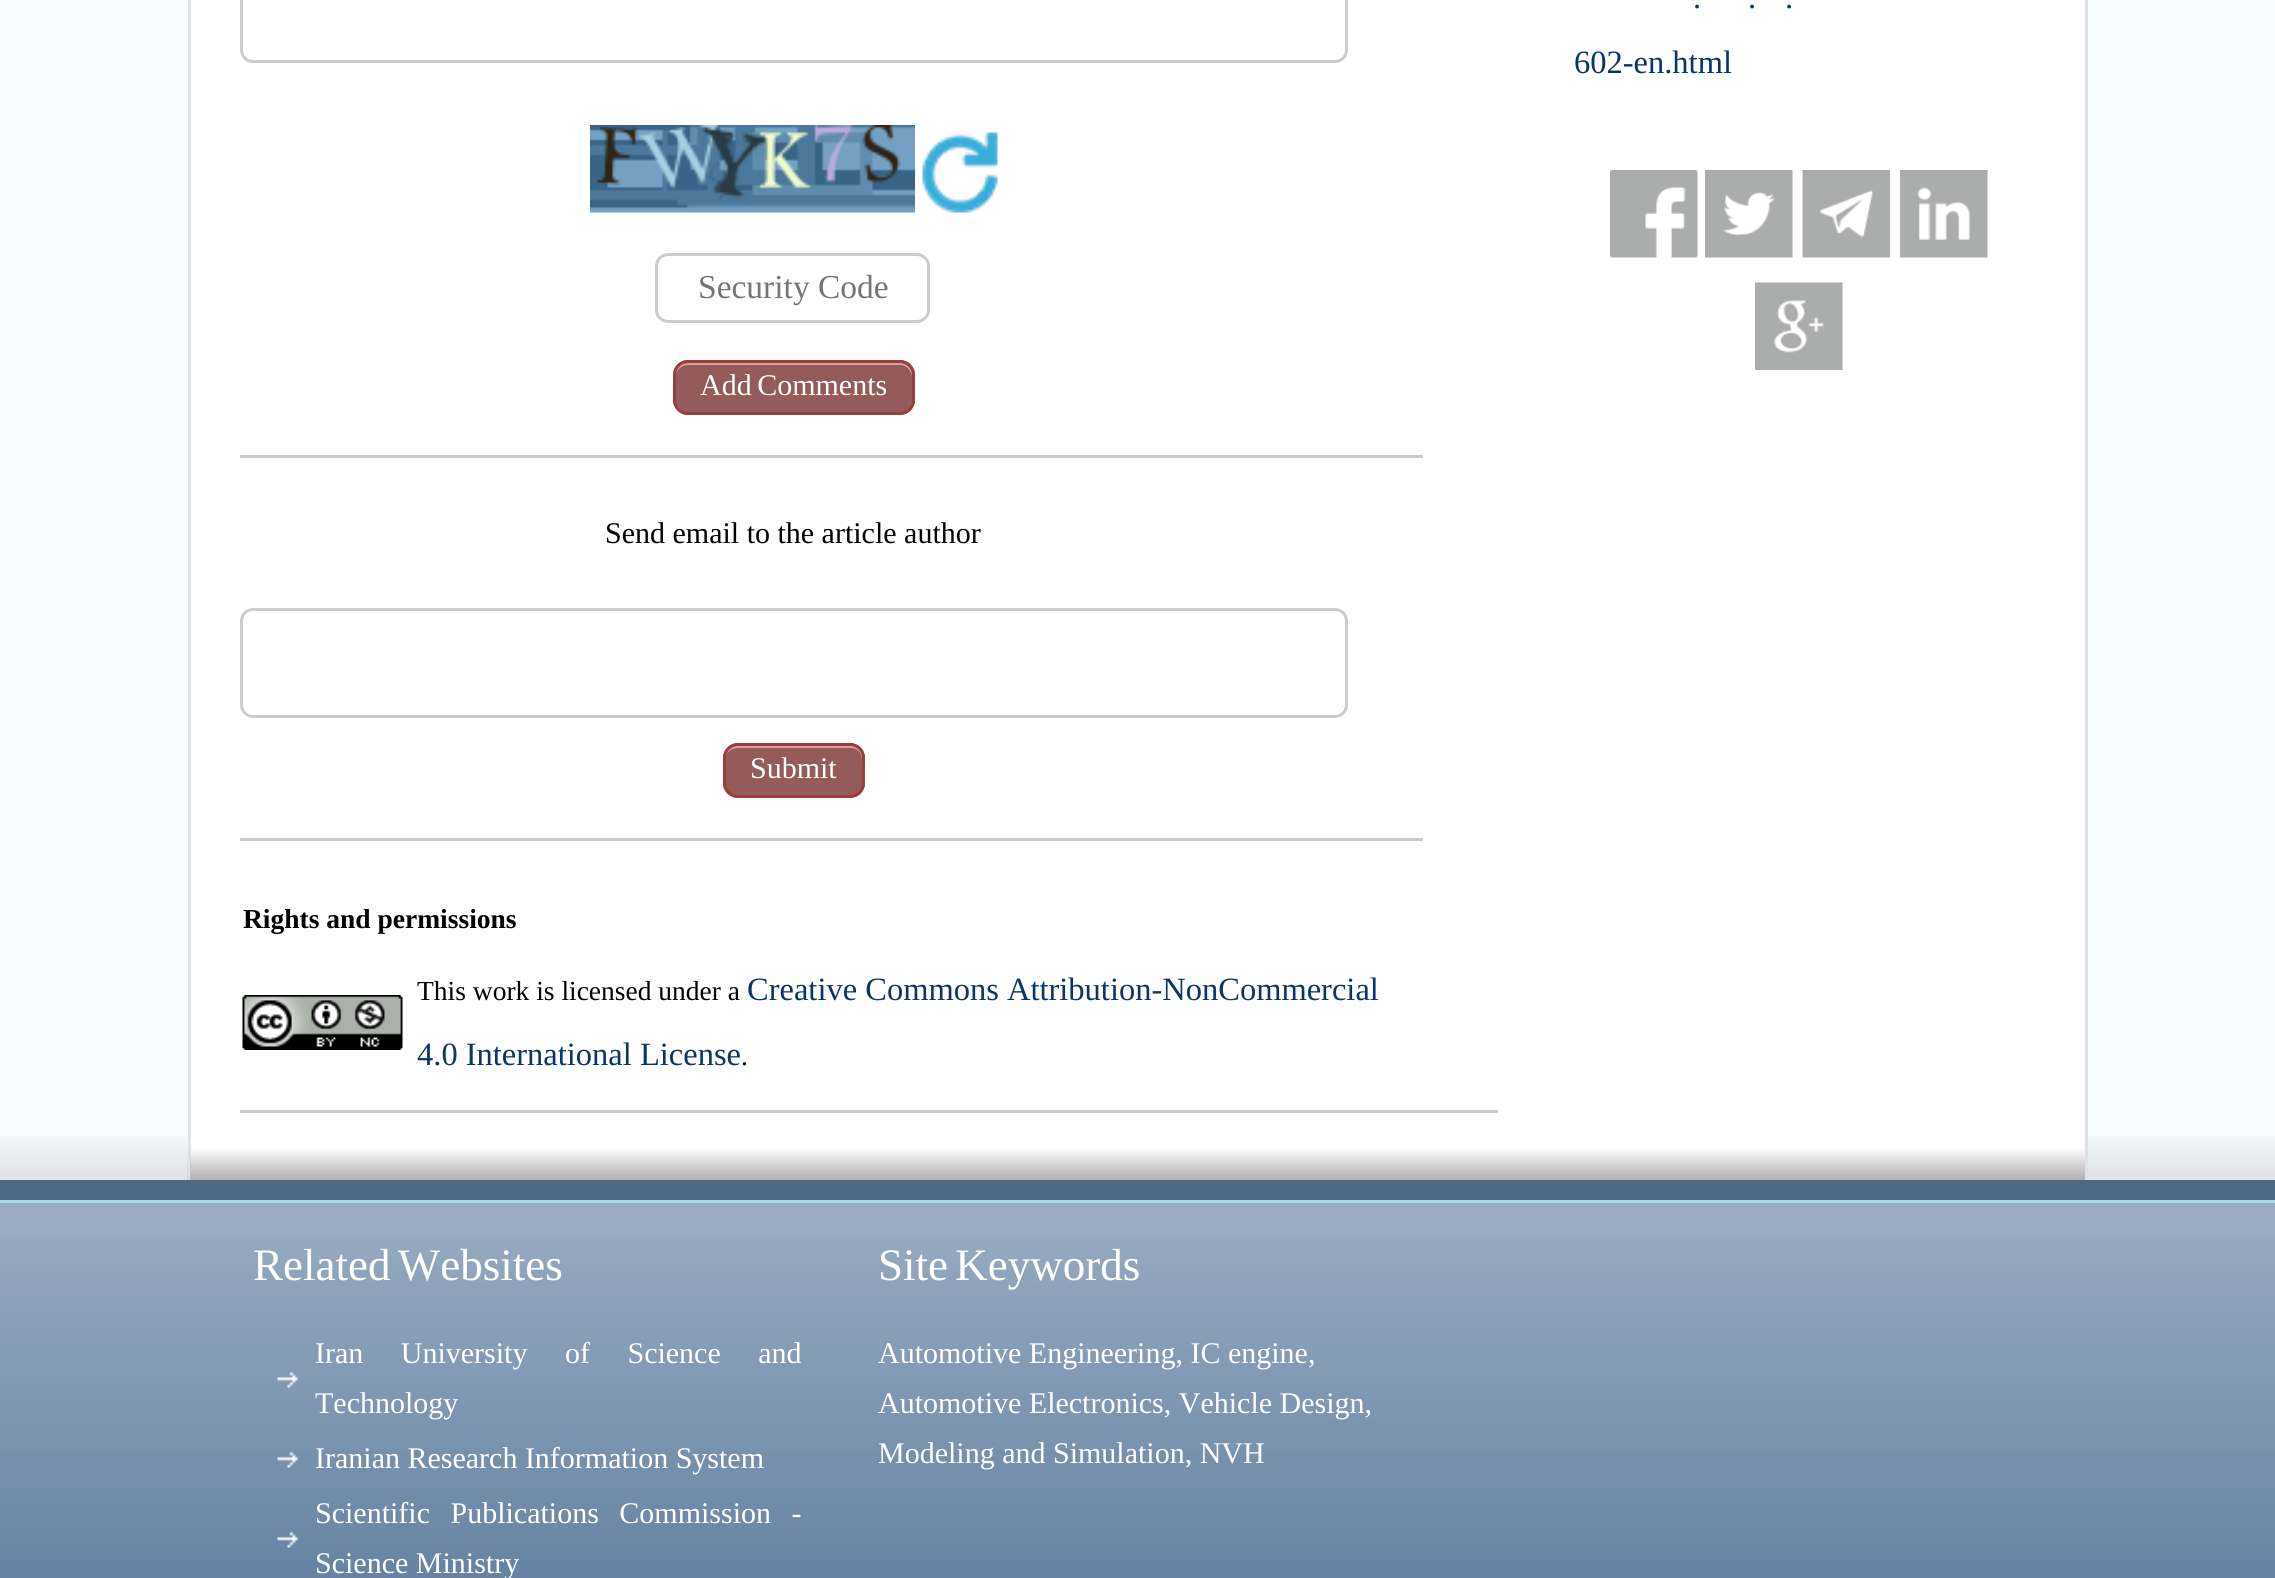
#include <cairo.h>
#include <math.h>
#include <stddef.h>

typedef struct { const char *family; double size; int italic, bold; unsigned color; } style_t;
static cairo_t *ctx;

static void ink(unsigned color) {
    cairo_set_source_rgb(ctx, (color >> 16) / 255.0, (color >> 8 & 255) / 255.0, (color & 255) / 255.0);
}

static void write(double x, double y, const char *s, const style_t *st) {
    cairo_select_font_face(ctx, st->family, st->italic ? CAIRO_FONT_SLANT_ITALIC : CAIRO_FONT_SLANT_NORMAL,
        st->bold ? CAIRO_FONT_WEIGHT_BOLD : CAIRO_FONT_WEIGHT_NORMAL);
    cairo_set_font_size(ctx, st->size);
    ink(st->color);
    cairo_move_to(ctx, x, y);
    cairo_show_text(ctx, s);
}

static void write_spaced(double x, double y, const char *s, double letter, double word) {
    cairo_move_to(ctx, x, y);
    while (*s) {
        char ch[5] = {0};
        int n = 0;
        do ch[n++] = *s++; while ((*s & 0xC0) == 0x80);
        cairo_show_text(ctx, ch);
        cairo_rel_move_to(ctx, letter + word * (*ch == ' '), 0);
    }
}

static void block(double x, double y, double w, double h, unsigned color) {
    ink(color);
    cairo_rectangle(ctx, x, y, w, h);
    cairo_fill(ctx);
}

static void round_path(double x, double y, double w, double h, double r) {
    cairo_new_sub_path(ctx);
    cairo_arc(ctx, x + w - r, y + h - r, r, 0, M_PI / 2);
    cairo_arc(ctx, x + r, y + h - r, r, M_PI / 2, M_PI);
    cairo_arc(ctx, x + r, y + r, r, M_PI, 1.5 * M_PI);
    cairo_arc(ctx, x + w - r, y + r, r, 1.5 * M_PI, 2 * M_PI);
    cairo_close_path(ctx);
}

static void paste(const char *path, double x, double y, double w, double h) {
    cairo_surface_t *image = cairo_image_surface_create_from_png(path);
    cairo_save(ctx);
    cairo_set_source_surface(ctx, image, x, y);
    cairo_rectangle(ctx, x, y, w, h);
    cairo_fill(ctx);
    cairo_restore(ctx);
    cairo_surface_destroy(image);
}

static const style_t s1 = {"Liberation Serif", 32.5, 0, 0, 0x08366c};
static const style_t s2 = {"Liberation Serif", 33.5, 0, 0, 0x757575};
static const style_t s3 = {"Liberation Serif", 30, 0, 0, 0x000000};
static const style_t s4 = {"Liberation Serif", 30, 0, 0, 0xffffff};
static const style_t s5 = {"Liberation Serif", 27.5, 0, 1, 0x000000};
static const style_t s6 = {"Liberation Serif", 27.5, 0, 0, 0x000000};

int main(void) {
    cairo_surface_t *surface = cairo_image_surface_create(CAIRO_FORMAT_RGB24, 2275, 1578);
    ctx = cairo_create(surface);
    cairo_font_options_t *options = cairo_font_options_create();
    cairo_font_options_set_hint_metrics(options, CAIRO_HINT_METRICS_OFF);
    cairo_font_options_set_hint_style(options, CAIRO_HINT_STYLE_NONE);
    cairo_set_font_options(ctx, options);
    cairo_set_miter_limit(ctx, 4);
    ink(0xf7fcfe);
    cairo_paint(ctx);
    paste("pic1.png", 0, 1136, 2275, 44);
    block(191, 0, 1894, 1180, 0xffffff);
    paste("pic2.png", 187, 1149, 1898, 31);
    block(2085, 0, 3, 1180, 0xdee2e4);
    block(188, 0, 3, 1180, 0xdee2e4);
    paste("pic3.png", 190, 1138, 1895, 42);
    write(1693, 8, ".", &s1);
    write(1748, 8, ".", &s1);
    write(1785, 8, ".", &s1);
    write(1574, 73, "602-en.html", &s1);
    paste("pic4.png", 1610, 170, 88, 88);
    paste("pic5.png", 1705, 170, 88, 88);
    paste("pic6.png", 1802, 170, 88, 88);
    paste("pic7.png", 1900, 170, 88, 88);
    paste("pic8.png", 1755, 282, 88, 88);
    round_path(241.5, -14.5, 1105, 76, 11.5);
    ink(0xcccccc);
    cairo_set_line_width(ctx, 3);
    cairo_stroke(ctx);
    paste("pic9.png", 590, 125, 325, 88);
    paste("pic10.png", 922, 132, 76, 81);
    round_path(656.5, 254.5, 272, 67, 11.5);
    cairo_stroke(ctx);
    write(698, 298, "Security Code", &s2);
    ink(0x955a5a);
    round_path(673, 360, 242, 55, 15);
    cairo_fill(ctx);
    ink(0xdfa1a0);
    cairo_new_path(ctx);
    cairo_move_to(ctx, 688, 365);
    cairo_line_to(ctx, 900, 365);
    cairo_curve_to(ctx, 907, 365, 912, 371, 912, 378);
    cairo_line_to(ctx, 912, 402);
    cairo_line_to(ctx, 911, 406);
    cairo_curve_to(ctx, 912, 405, 913, 402, 913, 400);
    cairo_line_to(ctx, 913, 376);
    cairo_curve_to(ctx, 913, 369, 907, 363, 900, 363);
    cairo_line_to(ctx, 688, 363);
    cairo_curve_to(ctx, 681, 363, 675, 369, 675, 376);
    cairo_line_to(ctx, 675, 378);
    cairo_curve_to(ctx, 675, 371, 681, 365, 688, 365);
    cairo_close_path(ctx);
    cairo_fill(ctx);
    round_path(674.5, 361.5, 239, 52, 13.5);
    ink(0x98403e);
    cairo_stroke(ctx);
    cairo_set_font_size(ctx, 30);
    ink(0xffffff);
    write_spaced(700, 395, "Add Comments", 0, -2);
    block(240, 455, 1183, 3, 0xcccccc);
    write(605, 543, "Send email to the article author", &s3);
    round_path(241.5, 609.5, 1105, 107, 11.5);
    ink(0xcccccc);
    cairo_stroke(ctx);
    ink(0x955a5a);
    round_path(723, 743, 142, 55, 15);
    cairo_fill(ctx);
    ink(0xdfa1a0);
    cairo_new_path(ctx);
    cairo_move_to(ctx, 738, 748);
    cairo_line_to(ctx, 850, 748);
    cairo_curve_to(ctx, 863, 748, 862, 759, 862, 768);
    cairo_line_to(ctx, 862, 787);
    cairo_curve_to(ctx, 863, 786, 863, 784, 863, 782);
    cairo_line_to(ctx, 863, 758);
    cairo_curve_to(ctx, 863, 751, 857, 745, 850, 745);
    cairo_line_to(ctx, 738, 745);
    cairo_curve_to(ctx, 731, 745, 725, 751, 725, 758);
    cairo_line_to(ctx, 725, 760);
    cairo_curve_to(ctx, 725, 753, 731, 748, 738, 748);
    cairo_close_path(ctx);
    cairo_fill(ctx);
    round_path(724.5, 744.5, 139, 52, 13.5);
    ink(0x98403e);
    cairo_stroke(ctx);
    write(750, 778, "Submit", &s4);
    block(240, 838, 1183, 3, 0xcccccc);
    write(243, 928, "Rights and permissions", &s5);
    paste("pic11.png", 242, 995, 161, 55);
    write(417, 1000, "This work is licensed under a", &s6);
    write(747, 1000, "Creative Commons Attribution-NonCommercial", &s1);
    write(417, 1065, "4.0 International License", &s1);
    write(741, 1065, ".", &s6);
    block(240, 1110, 1258, 3, 0xcccccc);
    block(0, 1203, 2275, 32, 0x99acc1);
    paste("pic12.png", 0, 1235, 2275, 343);
    block(0, 1180, 2275, 20, 0x4e6986);
    block(0, 1200, 2275, 3, 0xabd7e9);
    cairo_set_font_size(ctx, 45);
    ink(0xffffff);
    write_spaced(253, 1280, "Related Websites", 0, -4);
    paste("pic13.png", 277, 1371, 21, 17);
    cairo_set_font_size(ctx, 30);
    write_spaced(315, 1363, "Iran University of Science and", 0, 30);
    write(315, 1413, "Technology", &s4);
    paste("pic14.png", 277, 1451, 21, 17);
    write(315, 1468, "Iranian Research Information System", &s4);
    paste("pic15.png", 277, 1531, 21, 17);
    write_spaced(315, 1523, "Scientific Publications Commission -", 0, 13);
    write(315, 1573, "Science Ministry", &s4);
    cairo_set_font_size(ctx, 45);
    write_spaced(878, 1280, "Site Keywords", 0, -4);
    write(878, 1363, "Automotive Engineering, IC engine,", &s4);
    write(878, 1413, "Automotive Electronics, Vehicle Design,", &s4);
    write(878, 1463, "Modeling and Simulation, NVH", &s4);
    cairo_surface_write_to_png(surface, "screenshot.png");
    cairo_font_options_destroy(options);
    cairo_destroy(ctx);
    cairo_surface_destroy(surface);
    return 0;
}
